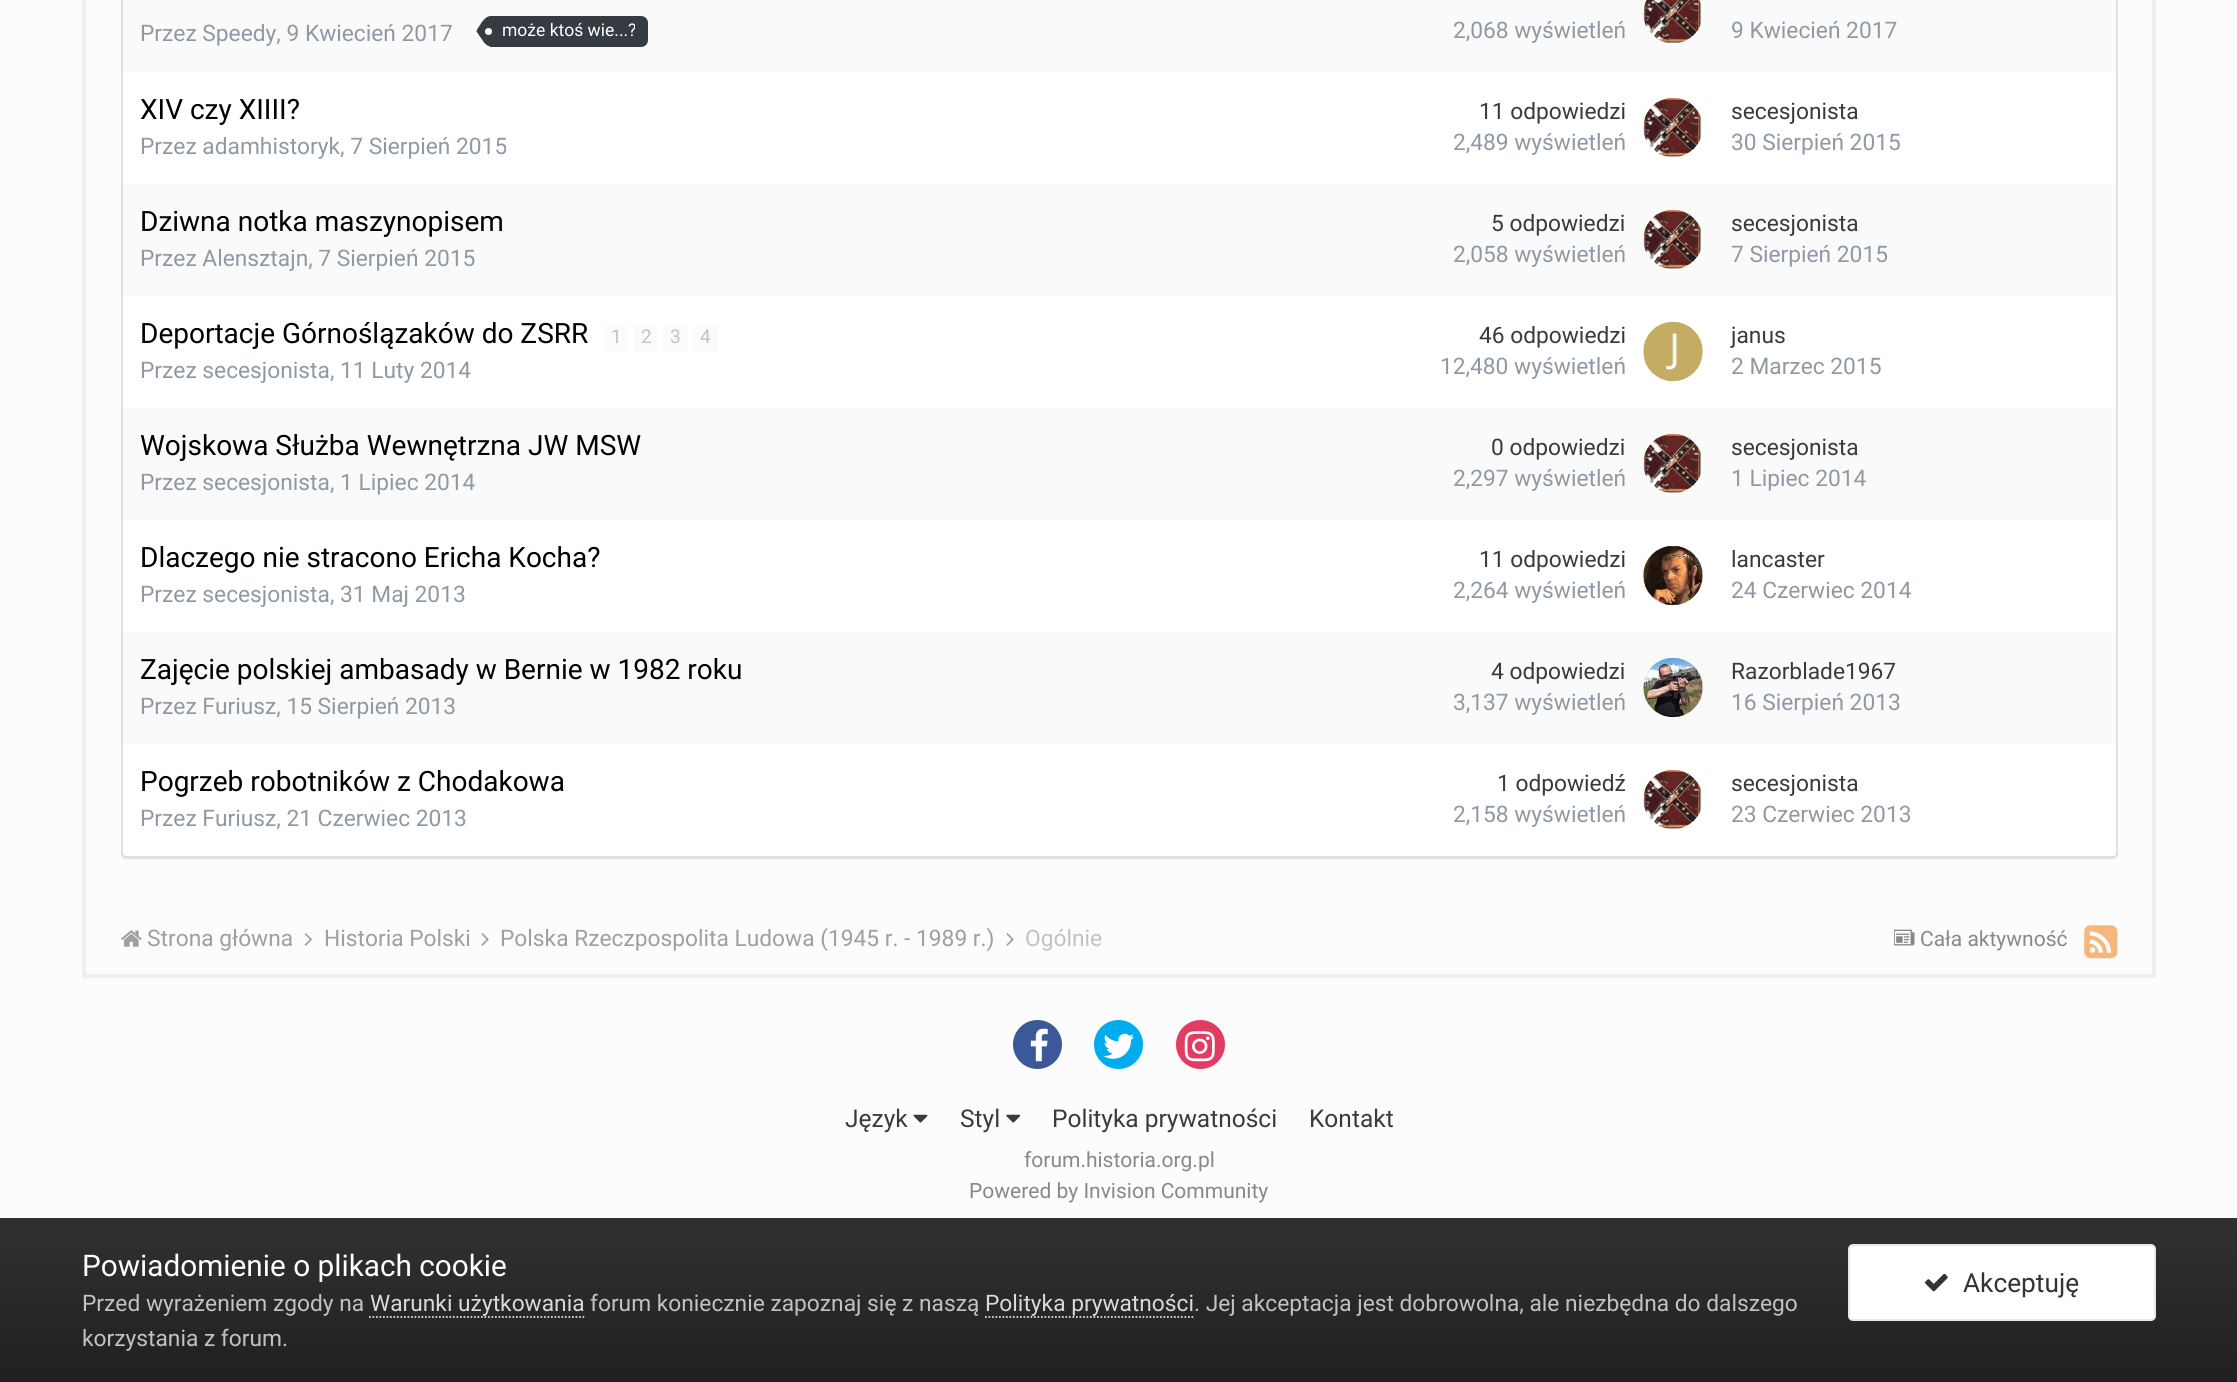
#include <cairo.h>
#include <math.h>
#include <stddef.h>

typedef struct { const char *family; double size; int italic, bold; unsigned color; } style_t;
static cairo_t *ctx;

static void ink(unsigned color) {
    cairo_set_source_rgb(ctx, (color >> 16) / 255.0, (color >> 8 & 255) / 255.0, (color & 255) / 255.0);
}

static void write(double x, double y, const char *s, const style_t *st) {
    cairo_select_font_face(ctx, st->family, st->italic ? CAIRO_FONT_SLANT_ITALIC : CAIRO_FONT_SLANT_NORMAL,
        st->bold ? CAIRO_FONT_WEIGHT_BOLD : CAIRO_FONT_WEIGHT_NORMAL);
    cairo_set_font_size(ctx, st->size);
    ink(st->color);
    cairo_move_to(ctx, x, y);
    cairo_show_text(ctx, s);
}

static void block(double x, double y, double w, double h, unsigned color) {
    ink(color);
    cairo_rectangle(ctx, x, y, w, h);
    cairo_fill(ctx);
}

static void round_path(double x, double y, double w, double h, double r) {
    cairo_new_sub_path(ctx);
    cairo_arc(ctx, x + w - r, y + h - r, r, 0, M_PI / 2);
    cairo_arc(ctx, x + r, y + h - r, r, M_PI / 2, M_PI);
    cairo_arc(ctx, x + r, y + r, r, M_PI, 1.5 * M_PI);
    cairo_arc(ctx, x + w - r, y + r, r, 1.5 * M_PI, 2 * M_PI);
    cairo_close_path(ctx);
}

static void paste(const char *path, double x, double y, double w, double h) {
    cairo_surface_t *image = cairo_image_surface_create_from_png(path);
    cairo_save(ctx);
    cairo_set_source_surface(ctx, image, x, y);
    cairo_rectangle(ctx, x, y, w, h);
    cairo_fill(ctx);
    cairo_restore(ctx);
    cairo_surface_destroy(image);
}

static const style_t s1 = {"Roboto", 22.75, 0, 0, 0x8d9aa6};
static const style_t s2 = {"Roboto", 17.5, 0, 0, 0xffffff};
static const style_t s3 = {"Roboto", 28, 0, 0, 0x000000};
static const style_t s4 = {"Roboto", 22.75, 0, 0, 0x353c41};
static const style_t s5 = {"Roboto", 19, 0, 0, 0xc2c2c2};
static const style_t s6 = {"Roboto", 22.75, 0, 0, 0x9f9f9f};
static const style_t s7 = {"Roboto", 22.75, 0, 0, 0xc2c2c2};
static const style_t s8 = {"Roboto", 21, 0, 0, 0x85898c};
static const style_t s9 = {"Roboto", 24.5, 0, 0, 0x353c41};
static const style_t s10 = {"Roboto", 29.75, 0, 0, 0xffffff};
static const style_t s11 = {"Roboto", 22.75, 0, 0, 0xdadada};
static const style_t s12 = {"Roboto", 26.25, 0, 0, 0x333333};

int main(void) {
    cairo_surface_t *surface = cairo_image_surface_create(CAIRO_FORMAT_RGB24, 2237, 1382);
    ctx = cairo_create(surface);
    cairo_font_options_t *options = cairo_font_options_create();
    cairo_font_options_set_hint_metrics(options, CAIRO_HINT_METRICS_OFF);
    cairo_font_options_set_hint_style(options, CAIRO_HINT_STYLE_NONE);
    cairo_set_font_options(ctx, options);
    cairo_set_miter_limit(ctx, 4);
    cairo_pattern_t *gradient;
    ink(0xfcfcfc);
    cairo_paint(ctx);
    cairo_rectangle(ctx, 84, -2, 2070, 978);
    ink(0xefefef);
    cairo_set_line_width(ctx, 4);
    cairo_stroke(ctx);
    ink(0xe3e3e3);
    cairo_new_path(ctx);
    cairo_move_to(ctx, 121, 854);
    cairo_curve_to(ctx, 121, 857, 123, 859, 126, 859);
    cairo_line_to(ctx, 2113, 859);
    cairo_curve_to(ctx, 2116, 859, 2118, 857, 2118, 854);
    cairo_line_to(ctx, 2118, -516);
    cairo_line_to(ctx, 2117, -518);
    cairo_line_to(ctx, 2118, 852);
    cairo_curve_to(ctx, 2118, 855, 2115, 858, 2112, 858);
    cairo_line_to(ctx, 126, 858);
    cairo_curve_to(ctx, 124, 858, 122, 856, 121, 854);
    cairo_close_path(ctx);
    cairo_fill(ctx);
    ink(0xffffff);
    round_path(122, -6, 1995, 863, 4);
    cairo_fill_preserve(ctx);
    ink(0xe0e0e0);
    cairo_set_line_width(ctx, 2);
    cairo_stroke(ctx);
    block(123, 0, 1993, 72, 0xfafafa);
    write(140, 41, "Przez Speedy, 9 Kwiecień 2017", &s1);
    ink(0x353c41);
    cairo_new_path(ctx);
    cairo_move_to(ctx, 490, 16);
    cairo_line_to(ctx, 641, 16);
    cairo_curve_to(ctx, 645, 16, 648, 19, 648, 23);
    cairo_line_to(ctx, 648, 40);
    cairo_curve_to(ctx, 648, 44, 645, 47, 641, 47);
    cairo_line_to(ctx, 490, 47);
    cairo_close_path(ctx);
    cairo_fill(ctx);
    cairo_new_path(ctx);
    cairo_move_to(ctx, 476.5, 31.5);
    cairo_line_to(ctx, 476.5, 31);
    cairo_line_to(ctx, 491, 31);
    cairo_line_to(ctx, 490.5, 31.5);
    cairo_line_to(ctx, 491, 31.5);
    cairo_line_to(ctx, 491, 46.5);
    cairo_curve_to(ctx, 489, 46.5, 486.5, 45.5, 484, 42.5);
    cairo_close_path(ctx);
    cairo_fill(ctx);
    cairo_set_fill_rule(ctx, CAIRO_FILL_RULE_EVEN_ODD);
    cairo_new_path(ctx);
    cairo_move_to(ctx, 481.5, 22.5);
    cairo_curve_to(ctx, 484, 19.5, 486.5, 16, 491, 16);
    cairo_line_to(ctx, 491, 31);
    cairo_line_to(ctx, 490.5, 30.5);
    cairo_line_to(ctx, 491, 31);
    cairo_line_to(ctx, 476.5, 31);
    cairo_curve_to(ctx, 477, 29, 480.5, 24.5, 481.5, 22.5);
    cairo_close_path(ctx);
    cairo_move_to(ctx, 491, 31);
    cairo_line_to(ctx, 491, 31);
    cairo_close_path(ctx);
    cairo_fill(ctx);
    cairo_save(ctx);
    cairo_set_fill_rule(ctx, CAIRO_FILL_RULE_WINDING);
    cairo_rectangle(ctx, 502, 16, 133, 31);
    cairo_clip(ctx);
    write(502, 36, "może ktoś wie...?", &s2);
    cairo_restore(ctx);
    ink(0xffffff);
    cairo_new_path(ctx);
    cairo_arc(ctx, 488.5, 31.5, 3.5, 0, 2 * M_PI);
    cairo_fill(ctx);
    write(1453, 38, "2,068 wyświetleń", &s1);
    ink(0xffffff);
    cairo_new_path(ctx);
    cairo_arc(ctx, 1673, 14, 30, 0, 2 * M_PI);
    cairo_fill(ctx);
    paste("pic1.png", 1643, 0, 60, 44);
    write(1731, 38, "9 Kwiecień 2017", &s1);
    write(140, 119, "XIV czy XIIII?", &s3);
    write(140, 154, "Przez adamhistoryk, 7 Sierpień 2015", &s1);
    write(1479, 119, "11 odpowiedzi", &s4);
    write(1453, 150, "2,489 wyświetleń", &s1);
    paste("pic2.png", 1643, 97, 60, 60);
    write(1731, 119, "secesjonista", &s4);
    write(1731, 150, "30 Sierpień 2015", &s1);
    block(123, 184, 1993, 112, 0xfafafa);
    write(140, 231, "Dziwna notka maszynopisem", &s3);
    write(140, 266, "Przez Alensztajn, 7 Sierpień 2015", &s1);
    write(1491, 231, "5 odpowiedzi", &s4);
    write(1453, 262, "2,058 wyświetleń", &s1);
    ink(0xffffff);
    cairo_new_path(ctx);
    cairo_arc(ctx, 1673, 240, 30, 0, 2 * M_PI);
    cairo_fill(ctx);
    paste("pic3.png", 1643, 209, 59, 60);
    write(1731, 231, "secesjonista", &s4);
    write(1731, 262, "7 Sierpień 2015", &s1);
    write(140, 343, "Deportacje Górnoślązaków do ZSRR", &s3);
    ink(0xfbfbfb);
    round_path(604, 324, 24, 28, 4);
    cairo_fill(ctx);
    write(611, 343, "1", &s5);
    ink(0xfbfbfb);
    round_path(634, 324, 24, 28, 4);
    cairo_fill(ctx);
    write(641, 343, "2", &s5);
    ink(0xfbfbfb);
    round_path(663, 324, 25, 28, 4);
    cairo_fill(ctx);
    write(670, 343, "3", &s5);
    ink(0xfbfbfb);
    round_path(693, 324, 25, 28, 4);
    cairo_fill(ctx);
    write(700, 343, "4", &s5);
    write(140, 378, "Przez secesjonista, 11 Luty 2014", &s1);
    write(1479, 343, "46 odpowiedzi", &s4);
    write(1440, 374, "12,480 wyświetleń", &s1);
    paste("pic4.png", 1643, 321, 60, 61);
    write(1731, 343, "janus", &s4);
    write(1731, 374, "2 Marzec 2015", &s1);
    block(123, 408, 1993, 112, 0xfafafa);
    write(140, 455, "Wojskowa Służba Wewnętrzna JW MSW", &s3);
    write(140, 490, "Przez secesjonista, 1 Lipiec 2014", &s1);
    write(1491, 455, "0 odpowiedzi", &s4);
    write(1453, 486, "2,297 wyświetleń", &s1);
    ink(0xffffff);
    cairo_new_path(ctx);
    cairo_arc(ctx, 1673, 464, 30, 0, 2 * M_PI);
    cairo_fill(ctx);
    paste("pic3.png", 1643, 433, 59, 60);
    write(1731, 455, "secesjonista", &s4);
    write(1731, 486, "1 Lipiec 2014", &s1);
    write(140, 567, "Dlaczego nie stracono Ericha Kocha?", &s3);
    write(140, 602, "Przez secesjonista, 31 Maj 2013", &s1);
    write(1479, 567, "11 odpowiedzi", &s4);
    write(1453, 598, "2,264 wyświetleń", &s1);
    paste("pic5.png", 1643, 545, 60, 61);
    write(1731, 567, "lancaster", &s4);
    write(1731, 598, "24 Czerwiec 2014", &s1);
    block(123, 632, 1993, 112, 0xfafafa);
    write(140, 679, "Zajęcie polskiej ambasady w Bernie w 1982 roku", &s3);
    write(140, 714, "Przez Furiusz, 15 Sierpień 2013", &s1);
    write(1491, 679, "4 odpowiedzi", &s4);
    write(1453, 710, "3,137 wyświetleń", &s1);
    ink(0xffffff);
    cairo_new_path(ctx);
    cairo_arc(ctx, 1673, 688, 30, 0, 2 * M_PI);
    cairo_fill(ctx);
    paste("pic6.png", 1643, 657, 60, 61);
    write(1731, 679, "Razorblade1967", &s4);
    write(1731, 710, "16 Sierpień 2013", &s1);
    write(140, 791, "Pogrzeb robotników z Chodakowa", &s3);
    write(140, 826, "Przez Furiusz, 21 Czerwiec 2013", &s1);
    write(1497, 791, "1 odpowiedź", &s4);
    write(1453, 822, "2,158 wyświetleń", &s1);
    paste("pic7.png", 1643, 769, 60, 60);
    write(1731, 791, "secesjonista", &s4);
    write(1731, 822, "23 Czerwiec 2013", &s1);
    paste("pic8.png", 121, 930, 21, 17);
    write(147, 946, "Strona główna", &s6);
    paste("pic9.png", 304, 933, 8, 13);
    write(324, 946, "Historia Polski", &s6);
    paste("pic10.png", 481, 933, 8, 13);
    write(500, 946, "Polska Rzeczpospolita Ludowa (1945 r. - 1989 r.)", &s6);
    paste("pic10.png", 1006, 933, 8, 13);
    write(1025, 946, "Ogólnie", &s7);
    paste("pic11.png", 1894, 929, 21, 17);
    write(1920, 946, "Cała aktywność", &s8);
    paste("pic12.png", 2084, 925, 34, 34);
    ink(0x3b5998);
    cairo_arc(ctx, 1037.5, 1044.5, 24.5, 0, 2 * M_PI);
    cairo_fill(ctx);
    paste("pic13.png", 1030, 1028, 18, 34);
    ink(0x00aced);
    cairo_arc(ctx, 1118.5, 1044.5, 24.5, 0, 2 * M_PI);
    cairo_fill(ctx);
    paste("pic14.png", 1103, 1033, 31, 26);
    ink(0xe13d62);
    cairo_arc(ctx, 1200.5, 1044.5, 24.5, 0, 2 * M_PI);
    cairo_fill(ctx);
    paste("pic15.png", 1184, 1031, 31, 31);
    write(845, 1127, "Język", &s9);
    paste("pic16.png", 913, 1114, 15, 9);
    write(960, 1127, "Styl", &s9);
    paste("pic17.png", 1006, 1114, 15, 9);
    write(1052, 1127, "Polityka prywatności", &s9);
    write(1309, 1127, "Kontakt", &s9);
    write(1024, 1167, "forum.historia.org.pl", &s8);
    write(969, 1198, "Powered by Invision Community", &s8);
    gradient = cairo_pattern_create_linear(1119, 1218, 1119, 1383);
    cairo_pattern_add_color_stop_rgba(gradient, 0, 0.192, 0.192, 0.192, 1);
    cairo_pattern_add_color_stop_rgba(gradient, 1, 0.125, 0.125, 0.125, 1);
    cairo_set_source(ctx, gradient);
    cairo_pattern_destroy(gradient);
    cairo_rectangle(ctx, 0, 1218, 2237, 164);
    cairo_fill(ctx);
    write(82, 1276, "Powiadomienie o plikach cookie", &s10);
    write(82, 1311, "Przed wyrażeniem zgody na", &s7);
    write(370, 1311, "Warunki użytkowania", &s11);
    cairo_new_path(ctx);
    cairo_move_to(ctx, 369, 1317);
    cairo_line_to(ctx, 584.5, 1317);
    cairo_set_line_width(ctx, 1.8);
    cairo_set_dash(ctx, (double[]){1.75, 1.75}, 2, 0);
    cairo_stroke(ctx);
    write(590, 1311, "forum koniecznie zapoznaj się z naszą", &s7);
    write(985, 1311, "Polityka prywatności", &s11);
    cairo_new_path(ctx);
    cairo_move_to(ctx, 985, 1317);
    cairo_line_to(ctx, 1193.5, 1317);
    cairo_stroke(ctx);
    write(1194, 1311, ". Jej akceptacja jest dobrowolna, ale niezbędna do dalszego", &s7);
    write(82, 1346, "korzystania z forum.", &s7);
    ink(0xffffff);
    round_path(1849, 1245, 306, 75, 4);
    cairo_fill_preserve(ctx);
    ink(0xe8e8e8);
    cairo_set_line_width(ctx, 2);
    cairo_set_dash(ctx, NULL, 0, 0);
    cairo_stroke(ctx);
    paste("pic18.png", 1925, 1273, 23, 19);
    write(1963, 1292, "Akceptuję", &s12);
    cairo_surface_write_to_png(surface, "screenshot.png");
    cairo_font_options_destroy(options);
    cairo_destroy(ctx);
    cairo_surface_destroy(surface);
    return 0;
}
